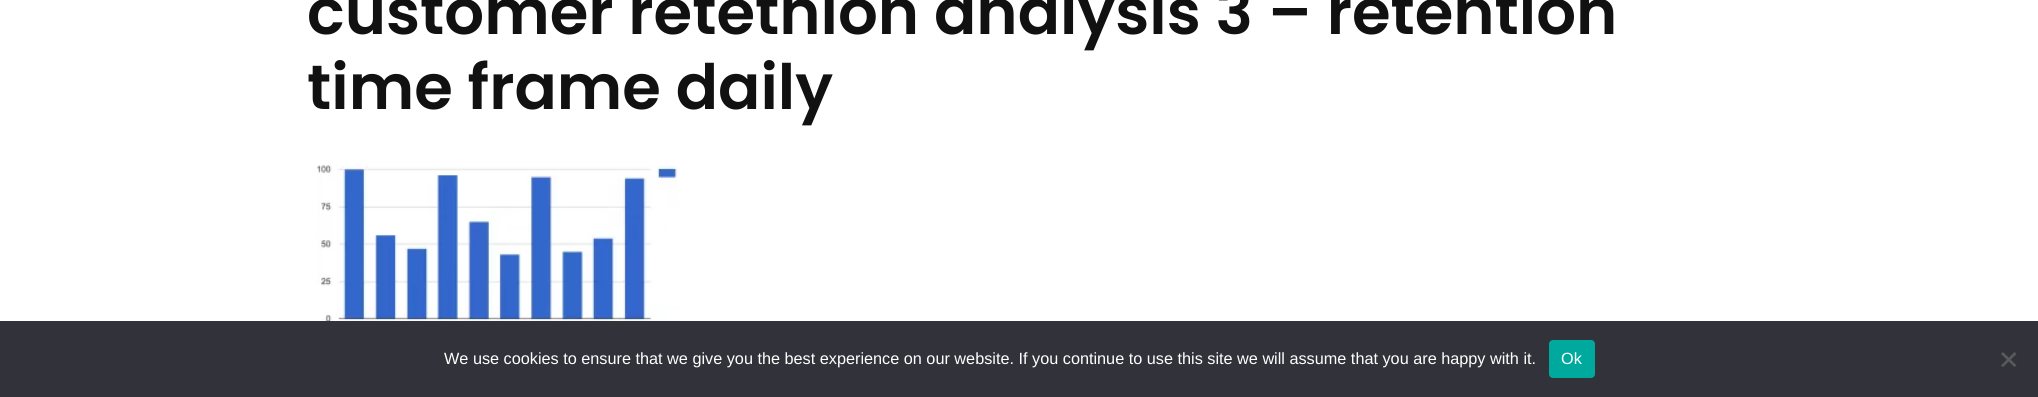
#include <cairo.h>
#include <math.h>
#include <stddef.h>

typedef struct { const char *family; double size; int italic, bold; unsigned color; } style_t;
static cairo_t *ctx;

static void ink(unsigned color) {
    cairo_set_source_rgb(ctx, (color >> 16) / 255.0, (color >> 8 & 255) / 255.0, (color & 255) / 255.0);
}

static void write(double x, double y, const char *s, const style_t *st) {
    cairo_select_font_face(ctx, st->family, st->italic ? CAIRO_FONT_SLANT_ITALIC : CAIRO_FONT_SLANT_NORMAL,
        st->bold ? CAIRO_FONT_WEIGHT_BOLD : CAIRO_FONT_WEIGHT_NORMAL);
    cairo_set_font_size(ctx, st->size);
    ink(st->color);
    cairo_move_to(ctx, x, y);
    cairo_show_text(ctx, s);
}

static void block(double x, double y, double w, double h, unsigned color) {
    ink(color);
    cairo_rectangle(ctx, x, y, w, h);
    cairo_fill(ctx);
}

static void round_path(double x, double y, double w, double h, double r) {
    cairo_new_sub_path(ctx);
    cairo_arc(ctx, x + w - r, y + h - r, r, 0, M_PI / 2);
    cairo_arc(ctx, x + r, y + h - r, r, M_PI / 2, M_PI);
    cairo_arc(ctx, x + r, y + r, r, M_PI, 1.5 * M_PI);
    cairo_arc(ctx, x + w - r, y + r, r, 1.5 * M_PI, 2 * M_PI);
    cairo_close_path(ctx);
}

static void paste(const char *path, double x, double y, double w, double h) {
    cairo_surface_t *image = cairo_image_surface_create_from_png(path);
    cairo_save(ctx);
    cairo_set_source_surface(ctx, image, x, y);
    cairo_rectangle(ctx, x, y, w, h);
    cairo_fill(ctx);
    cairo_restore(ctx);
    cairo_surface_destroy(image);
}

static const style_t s1 = {"Poppins SemiBold", 62.5, 0, 0, 0x111111};
static const style_t s2 = {"Liberation Sans", 16.25, 0, 0, 0xffffff};

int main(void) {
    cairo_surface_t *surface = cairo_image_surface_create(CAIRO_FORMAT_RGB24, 2038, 397);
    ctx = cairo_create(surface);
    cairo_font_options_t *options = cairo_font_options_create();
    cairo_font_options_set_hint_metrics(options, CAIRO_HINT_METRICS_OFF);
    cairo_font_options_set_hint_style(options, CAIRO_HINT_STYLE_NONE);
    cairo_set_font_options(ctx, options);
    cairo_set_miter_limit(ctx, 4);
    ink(0xffffff);
    cairo_paint(ctx);
    write(307, 34, "customer retetnion analysis 3 – retention", &s1);
    write(307, 109, "time frame daily", &s1);
    paste("pic1.png", 317, 165, 361, 156);
    block(0, 321, 2038, 76, 0x32323a);
    write(444, 364, "We use cookies to ensure that we give you the best experience on our website. If you continue to use this site we will assume that you are happy with it.", &s2);
    ink(0x00a99d);
    round_path(1549, 340, 46, 38, 4);
    cairo_fill(ctx);
    write(1561, 364, "Ok", &s2);
    ink(0x59595d);
    cairo_new_path(ctx);
    cairo_move_to(ctx, 2014.5, 352);
    cairo_line_to(ctx, 2016.5, 354);
    cairo_line_to(ctx, 2003, 367);
    cairo_line_to(ctx, 2001, 365.5);
    cairo_close_path(ctx);
    cairo_fill(ctx);
    cairo_new_path(ctx);
    cairo_move_to(ctx, 2001, 354);
    cairo_line_to(ctx, 2003, 352);
    cairo_line_to(ctx, 2016.5, 365.5);
    cairo_line_to(ctx, 2014.5, 367);
    cairo_close_path(ctx);
    cairo_fill(ctx);
    cairo_surface_write_to_png(surface, "screenshot.png");
    cairo_font_options_destroy(options);
    cairo_destroy(ctx);
    cairo_surface_destroy(surface);
    return 0;
}
